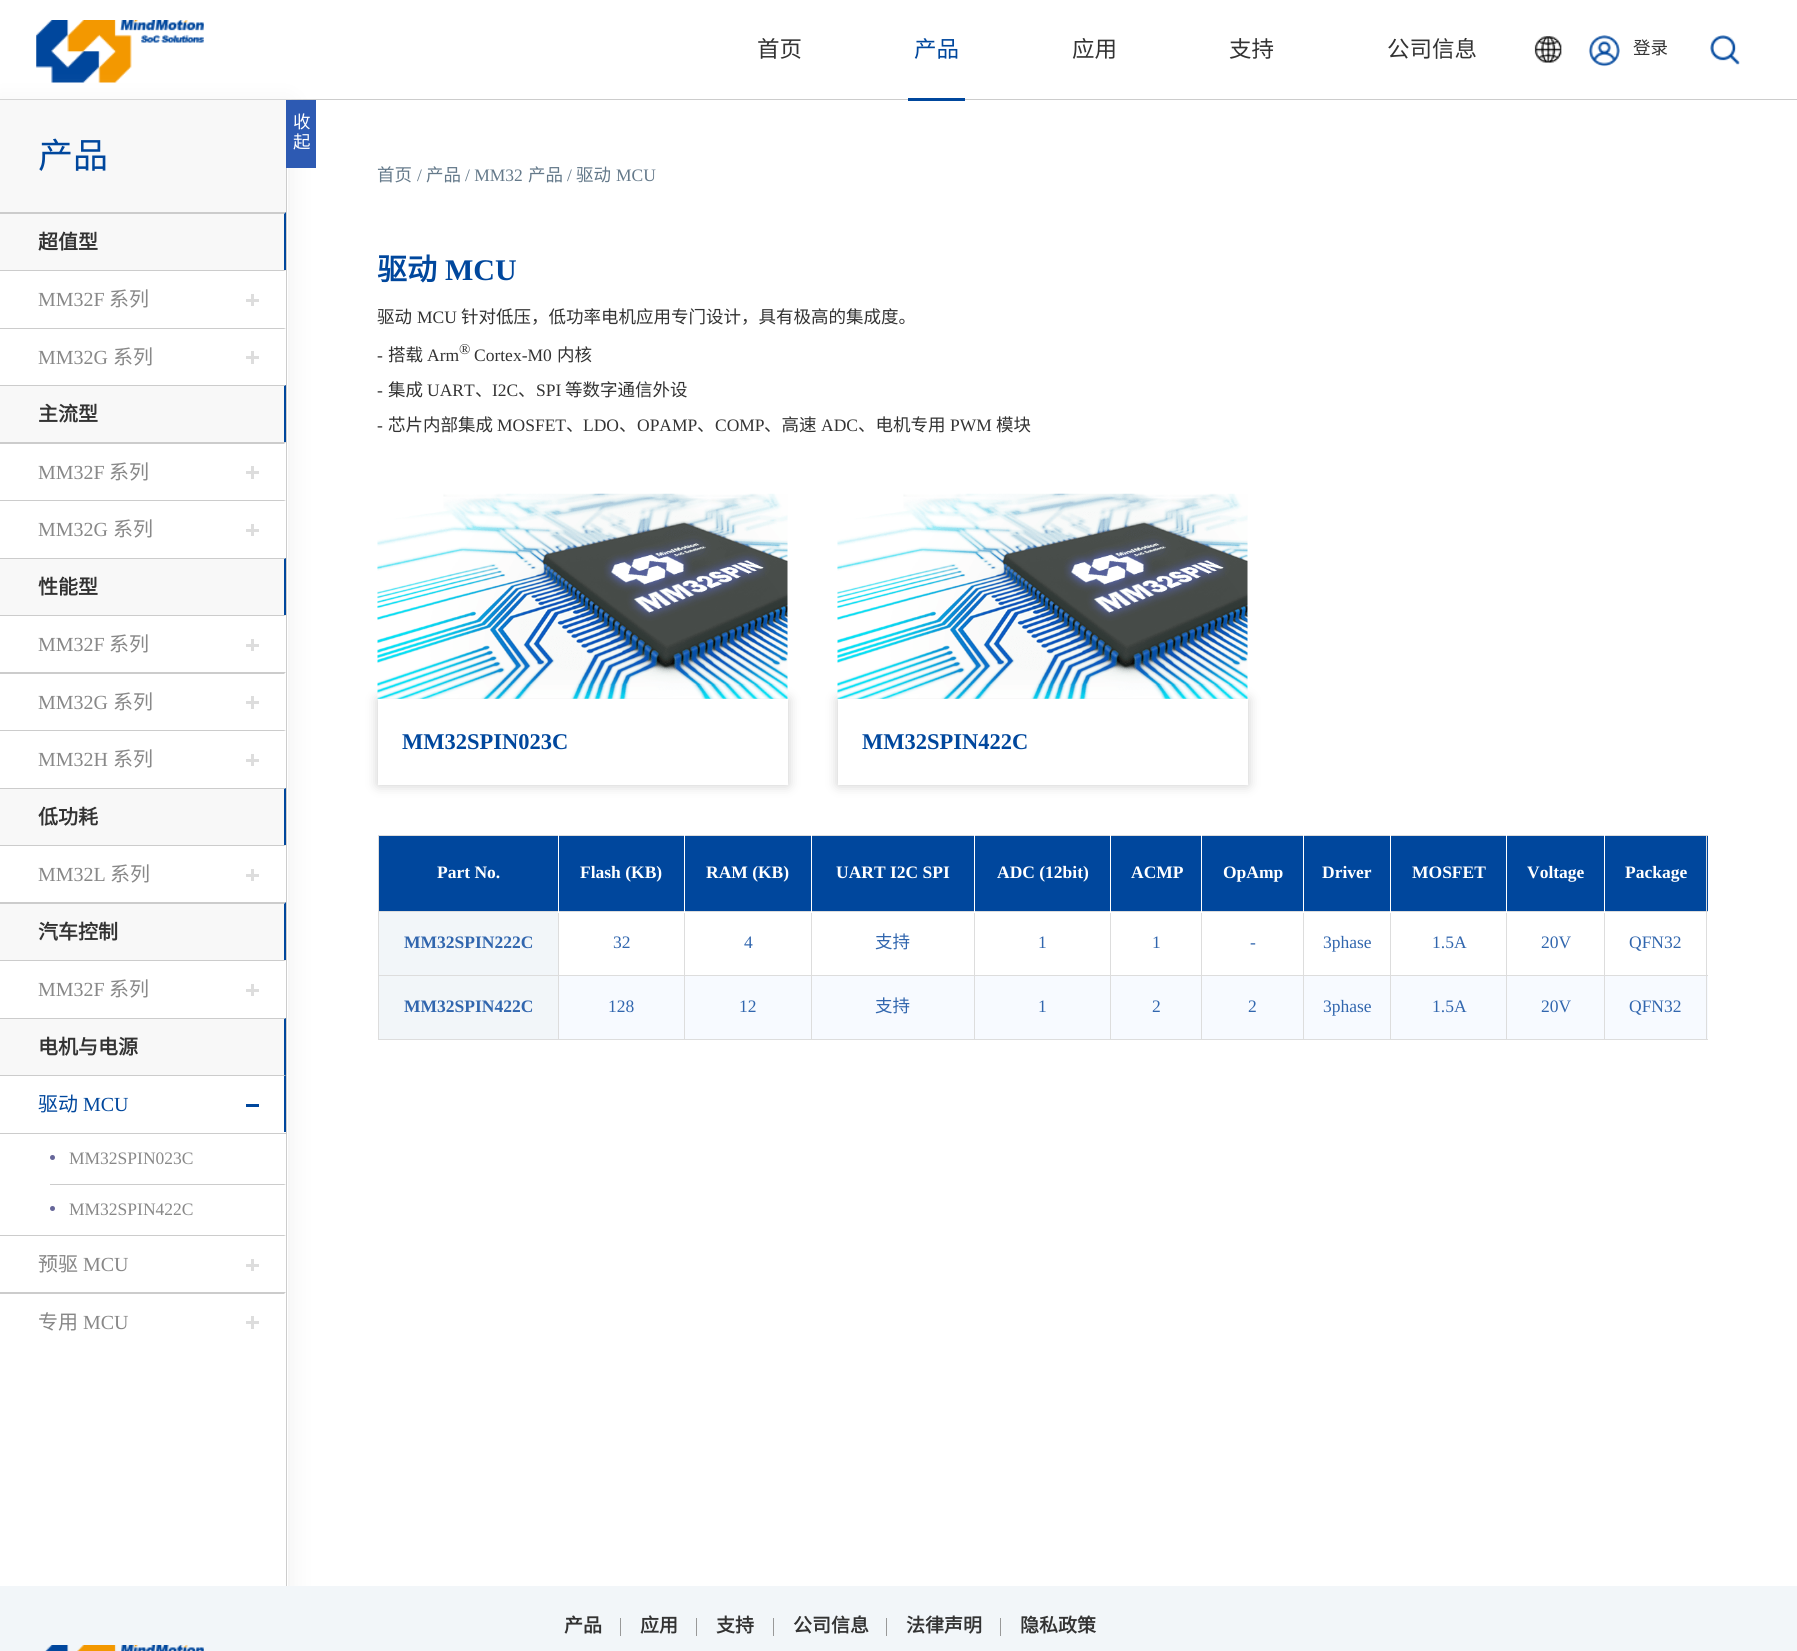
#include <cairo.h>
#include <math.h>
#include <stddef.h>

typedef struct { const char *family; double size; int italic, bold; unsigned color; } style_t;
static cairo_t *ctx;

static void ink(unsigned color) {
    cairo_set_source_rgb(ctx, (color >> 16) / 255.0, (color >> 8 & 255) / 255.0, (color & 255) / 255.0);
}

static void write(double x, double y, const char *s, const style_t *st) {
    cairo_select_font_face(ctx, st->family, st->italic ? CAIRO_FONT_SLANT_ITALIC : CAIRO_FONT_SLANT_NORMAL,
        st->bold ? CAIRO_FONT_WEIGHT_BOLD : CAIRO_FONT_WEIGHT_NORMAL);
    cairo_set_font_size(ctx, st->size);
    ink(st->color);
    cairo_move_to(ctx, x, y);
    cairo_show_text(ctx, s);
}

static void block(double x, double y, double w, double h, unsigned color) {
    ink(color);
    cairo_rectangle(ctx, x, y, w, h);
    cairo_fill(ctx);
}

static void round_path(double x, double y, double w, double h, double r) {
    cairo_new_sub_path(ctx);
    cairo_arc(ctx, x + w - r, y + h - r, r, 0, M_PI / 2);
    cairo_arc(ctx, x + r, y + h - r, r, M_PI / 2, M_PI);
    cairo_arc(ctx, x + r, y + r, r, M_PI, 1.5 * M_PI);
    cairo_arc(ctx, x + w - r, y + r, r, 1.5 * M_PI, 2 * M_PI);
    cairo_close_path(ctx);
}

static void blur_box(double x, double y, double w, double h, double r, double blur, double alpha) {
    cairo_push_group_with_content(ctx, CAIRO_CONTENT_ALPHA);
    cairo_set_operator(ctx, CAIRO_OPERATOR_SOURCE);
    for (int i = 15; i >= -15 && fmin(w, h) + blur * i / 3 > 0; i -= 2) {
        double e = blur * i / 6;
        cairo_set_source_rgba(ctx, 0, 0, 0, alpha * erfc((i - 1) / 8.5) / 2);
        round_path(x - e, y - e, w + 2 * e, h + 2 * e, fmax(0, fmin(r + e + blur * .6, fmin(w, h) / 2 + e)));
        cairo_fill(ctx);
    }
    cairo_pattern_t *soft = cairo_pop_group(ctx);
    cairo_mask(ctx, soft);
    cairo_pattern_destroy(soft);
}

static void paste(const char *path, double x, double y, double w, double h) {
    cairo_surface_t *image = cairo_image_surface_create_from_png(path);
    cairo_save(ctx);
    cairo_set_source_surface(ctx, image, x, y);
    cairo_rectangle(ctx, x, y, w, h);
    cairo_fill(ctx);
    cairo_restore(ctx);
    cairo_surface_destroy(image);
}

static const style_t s1 = {"Noto Sans CJK SC", 22.5, 0, 0, 0x333333};
static const style_t s2 = {"Noto Sans CJK SC", 22.5, 0, 0, 0x00479d};
static const style_t s3 = {"Noto Sans CJK SC", 17.5, 0, 0, 0x333333};
static const style_t s4 = {"Noto Sans CJK SC", 17.5, 0, 0, 0xffffff};
static const style_t s5 = {"Noto Sans CJK SC", 35, 0, 0, 0x00479d};
static const style_t s6 = {"Noto Sans CJK SC", 20, 0, 1, 0x333333};
static const style_t s7 = {"Liberation Serif", 20, 0, 0, 0x888888};
static const style_t s8 = {"Noto Sans CJK SC", 20, 0, 0, 0x888888};
static const style_t s9 = {"Noto Sans CJK SC", 20, 0, 0, 0x00479d};
static const style_t s10 = {"Liberation Serif", 20, 0, 0, 0x00479d};
static const style_t s11 = {"Liberation Serif", 17.5, 0, 0, 0x888888};
static const style_t s12 = {"Noto Sans CJK SC", 17.5, 0, 0, 0x64798a};
static const style_t s13 = {"Liberation Serif", 17.5, 0, 0, 0x64798a};
static const style_t s14 = {"Noto Sans CJK SC", 30, 0, 1, 0x00479d};
static const style_t s15 = {"Liberation Serif", 30, 0, 1, 0x00479d};
static const style_t s16 = {"Liberation Serif", 17.5, 0, 0, 0x333333};
static const style_t s17 = {"Liberation Serif", 15, 0, 0, 0x333333};
static const style_t s18 = {"Liberation Serif", 22.5, 0, 1, 0x00479d};
static const style_t s19 = {"Liberation Serif", 17.5, 0, 1, 0xffffff};
static const style_t s20 = {"Liberation Serif", 17.5, 0, 1, 0x3166ae};
static const style_t s21 = {"Liberation Serif", 17.5, 0, 0, 0x3166ae};
static const style_t s22 = {"Noto Sans CJK SC", 17.5, 0, 0, 0x3166ae};
static const style_t s23 = {"Noto Sans CJK SC", 19, 0, 1, 0x333333};

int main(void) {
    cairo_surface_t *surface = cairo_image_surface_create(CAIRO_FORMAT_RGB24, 1797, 1651);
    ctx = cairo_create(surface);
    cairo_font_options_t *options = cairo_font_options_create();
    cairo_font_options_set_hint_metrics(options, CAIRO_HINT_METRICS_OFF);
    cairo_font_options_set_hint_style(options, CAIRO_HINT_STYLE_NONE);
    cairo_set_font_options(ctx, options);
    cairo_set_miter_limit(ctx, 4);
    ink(0xffffff);
    cairo_paint(ctx);
    block(0, 99, 1797, 1, 0xcccccc);
    paste("pic1.png", 36, 20, 168, 63);
    write(757, 57, "首页", &s1);
    write(914, 57, "产品", &s2);
    block(908, 98, 57, 3, 0x00479d);
    write(1072, 57, "应用", &s1);
    write(1229, 57, "支持", &s1);
    write(1387, 57, "公司信息", &s1);
    paste("pic2.png", 1534, 36, 28, 27);
    paste("pic3.png", 1588, 35, 32, 32);
    write(1633, 54, "登录", &s3);
    paste("pic4.png", 1710, 35, 30, 30);
    ink(0xeeeeee);
    blur_box(0, 106, 288, 1487, 0, 12.5, 1);
    block(0, 168, 288, 1418, 0xffffff);
    block(286, 168, 1, 1418, 0xcccccc);
    block(286, 100, 30, 68, 0x2d5ab3);
    write(293, 128, "收", &s4);
    write(293, 148, "起", &s4);
    block(0, 100, 286, 113, 0xf8f8f8);
    write(38, 168, "产品", &s5);
    block(0, 213, 285, 57, 0xf8f8f8);
    ink(0xcccccc);
    cairo_new_path(ctx);
    cairo_move_to(ctx, 0, 212);
    cairo_line_to(ctx, 286, 212);
    cairo_line_to(ctx, 284, 214);
    cairo_line_to(ctx, 0, 214);
    cairo_close_path(ctx);
    cairo_fill(ctx);
    ink(0x00479d);
    cairo_new_path(ctx);
    cairo_move_to(ctx, 286, 212);
    cairo_line_to(ctx, 286, 270);
    cairo_line_to(ctx, 284, 270);
    cairo_line_to(ctx, 284, 214);
    cairo_close_path(ctx);
    cairo_fill(ctx);
    write(38, 249, "超值型", &s6);
    ink(0xcccccc);
    cairo_new_path(ctx);
    cairo_move_to(ctx, 0, 270);
    cairo_line_to(ctx, 286, 270);
    cairo_line_to(ctx, 284, 271);
    cairo_line_to(ctx, 0, 271);
    cairo_close_path(ctx);
    cairo_fill(ctx);
    write(38, 306, "MM32F", &s7);
    write(109, 306, "系列", &s8);
    block(251, 294, 3, 12, 0xdddddd);
    block(246, 299, 13, 3, 0xdddddd);
    ink(0xcccccc);
    cairo_new_path(ctx);
    cairo_move_to(ctx, 0, 328);
    cairo_line_to(ctx, 286, 328);
    cairo_line_to(ctx, 284, 329);
    cairo_line_to(ctx, 0, 329);
    cairo_close_path(ctx);
    cairo_fill(ctx);
    write(38, 364, "MM32G", &s7);
    write(113, 364, "系列", &s8);
    block(251, 351, 3, 13, 0xdddddd);
    block(246, 356, 13, 3, 0xdddddd);
    block(0, 385, 286, 58, 0xf8f8f8);
    ink(0xcccccc);
    cairo_new_path(ctx);
    cairo_move_to(ctx, 0, 385);
    cairo_line_to(ctx, 286, 385);
    cairo_line_to(ctx, 284, 386);
    cairo_line_to(ctx, 0, 386);
    cairo_close_path(ctx);
    cairo_fill(ctx);
    ink(0x00479d);
    cairo_new_path(ctx);
    cairo_move_to(ctx, 286, 385);
    cairo_line_to(ctx, 286, 442);
    cairo_line_to(ctx, 284, 442);
    cairo_line_to(ctx, 284, 386);
    cairo_close_path(ctx);
    cairo_fill(ctx);
    write(38, 421, "主流型", &s6);
    ink(0xcccccc);
    cairo_new_path(ctx);
    cairo_move_to(ctx, 0, 442);
    cairo_line_to(ctx, 286, 442);
    cairo_line_to(ctx, 284, 444);
    cairo_line_to(ctx, 0, 444);
    cairo_close_path(ctx);
    cairo_fill(ctx);
    write(38, 479, "MM32F", &s7);
    write(109, 479, "系列", &s8);
    block(251, 466, 3, 13, 0xdddddd);
    block(246, 471, 13, 3, 0xdddddd);
    ink(0xcccccc);
    cairo_new_path(ctx);
    cairo_move_to(ctx, 0, 500);
    cairo_line_to(ctx, 286, 500);
    cairo_line_to(ctx, 284, 501);
    cairo_line_to(ctx, 0, 501);
    cairo_close_path(ctx);
    cairo_fill(ctx);
    write(38, 536, "MM32G", &s7);
    write(113, 536, "系列", &s8);
    block(251, 524, 3, 12, 0xdddddd);
    block(246, 529, 13, 3, 0xdddddd);
    block(0, 558, 286, 57, 0xf8f8f8);
    ink(0xcccccc);
    cairo_new_path(ctx);
    cairo_move_to(ctx, 0, 558);
    cairo_line_to(ctx, 286, 558);
    cairo_line_to(ctx, 284, 559);
    cairo_line_to(ctx, 0, 559);
    cairo_close_path(ctx);
    cairo_fill(ctx);
    ink(0x00479d);
    cairo_new_path(ctx);
    cairo_move_to(ctx, 286, 558);
    cairo_line_to(ctx, 286, 615);
    cairo_line_to(ctx, 284, 615);
    cairo_line_to(ctx, 284, 559);
    cairo_close_path(ctx);
    cairo_fill(ctx);
    write(38, 594, "性能型", &s6);
    ink(0xcccccc);
    cairo_new_path(ctx);
    cairo_move_to(ctx, 0, 615);
    cairo_line_to(ctx, 286, 615);
    cairo_line_to(ctx, 284, 616);
    cairo_line_to(ctx, 0, 616);
    cairo_close_path(ctx);
    cairo_fill(ctx);
    write(38, 651, "MM32F", &s7);
    write(109, 651, "系列", &s8);
    block(251, 639, 3, 12, 0xdddddd);
    block(246, 644, 13, 3, 0xdddddd);
    ink(0xcccccc);
    cairo_new_path(ctx);
    cairo_move_to(ctx, 0, 672);
    cairo_line_to(ctx, 286, 672);
    cairo_line_to(ctx, 284, 674);
    cairo_line_to(ctx, 0, 674);
    cairo_close_path(ctx);
    cairo_fill(ctx);
    write(38, 709, "MM32G", &s7);
    write(113, 709, "系列", &s8);
    block(251, 696, 3, 13, 0xdddddd);
    block(246, 701, 13, 3, 0xdddddd);
    ink(0xcccccc);
    cairo_new_path(ctx);
    cairo_move_to(ctx, 0, 730);
    cairo_line_to(ctx, 286, 730);
    cairo_line_to(ctx, 284, 731);
    cairo_line_to(ctx, 0, 731);
    cairo_close_path(ctx);
    cairo_fill(ctx);
    write(38, 766, "MM32H", &s7);
    write(113, 766, "系列", &s8);
    block(251, 754, 3, 12, 0xdddddd);
    block(246, 759, 13, 3, 0xdddddd);
    block(0, 788, 286, 57, 0xf8f8f8);
    ink(0xcccccc);
    cairo_new_path(ctx);
    cairo_move_to(ctx, 0, 788);
    cairo_line_to(ctx, 286, 788);
    cairo_line_to(ctx, 284, 789);
    cairo_line_to(ctx, 0, 789);
    cairo_close_path(ctx);
    cairo_fill(ctx);
    ink(0x00479d);
    cairo_new_path(ctx);
    cairo_move_to(ctx, 286, 788);
    cairo_line_to(ctx, 286, 845);
    cairo_line_to(ctx, 284, 845);
    cairo_line_to(ctx, 284, 789);
    cairo_close_path(ctx);
    cairo_fill(ctx);
    write(38, 824, "低功耗", &s6);
    ink(0xcccccc);
    cairo_new_path(ctx);
    cairo_move_to(ctx, 0, 845);
    cairo_line_to(ctx, 286, 845);
    cairo_line_to(ctx, 284, 846);
    cairo_line_to(ctx, 0, 846);
    cairo_close_path(ctx);
    cairo_fill(ctx);
    write(38, 881, "MM32L", &s7);
    write(110, 881, "系列", &s8);
    block(251, 869, 3, 12, 0xdddddd);
    block(246, 874, 13, 3, 0xdddddd);
    block(0, 903, 285, 57, 0xf8f8f8);
    ink(0xcccccc);
    cairo_new_path(ctx);
    cairo_move_to(ctx, 0, 902);
    cairo_line_to(ctx, 286, 902);
    cairo_line_to(ctx, 284, 904);
    cairo_line_to(ctx, 0, 904);
    cairo_close_path(ctx);
    cairo_fill(ctx);
    ink(0x00479d);
    cairo_new_path(ctx);
    cairo_move_to(ctx, 286, 902);
    cairo_line_to(ctx, 286, 960);
    cairo_line_to(ctx, 284, 960);
    cairo_line_to(ctx, 284, 904);
    cairo_close_path(ctx);
    cairo_fill(ctx);
    write(38, 939, "汽车控制", &s6);
    ink(0xcccccc);
    cairo_new_path(ctx);
    cairo_move_to(ctx, 0, 960);
    cairo_line_to(ctx, 286, 960);
    cairo_line_to(ctx, 284, 961);
    cairo_line_to(ctx, 0, 961);
    cairo_close_path(ctx);
    cairo_fill(ctx);
    write(38, 996, "MM32F", &s7);
    write(109, 996, "系列", &s8);
    block(251, 984, 3, 12, 0xdddddd);
    block(246, 989, 13, 3, 0xdddddd);
    block(0, 1018, 286, 57, 0xf8f8f8);
    ink(0xcccccc);
    cairo_new_path(ctx);
    cairo_move_to(ctx, 0, 1018);
    cairo_line_to(ctx, 286, 1018);
    cairo_line_to(ctx, 284, 1019);
    cairo_line_to(ctx, 0, 1019);
    cairo_close_path(ctx);
    cairo_fill(ctx);
    ink(0x00479d);
    cairo_new_path(ctx);
    cairo_move_to(ctx, 286, 1018);
    cairo_line_to(ctx, 286, 1075);
    cairo_line_to(ctx, 284, 1075);
    cairo_line_to(ctx, 284, 1019);
    cairo_close_path(ctx);
    cairo_fill(ctx);
    write(38, 1054, "电机与电源", &s6);
    ink(0xcccccc);
    cairo_new_path(ctx);
    cairo_move_to(ctx, 0, 1075);
    cairo_line_to(ctx, 286, 1075);
    cairo_line_to(ctx, 284, 1076);
    cairo_line_to(ctx, 0, 1076);
    cairo_close_path(ctx);
    cairo_fill(ctx);
    ink(0x00479d);
    cairo_new_path(ctx);
    cairo_move_to(ctx, 286, 1075);
    cairo_line_to(ctx, 286, 1132);
    cairo_line_to(ctx, 284, 1132);
    cairo_line_to(ctx, 284, 1076);
    cairo_close_path(ctx);
    cairo_fill(ctx);
    write(38, 1111, "驱动", &s9);
    write(83, 1111, "MCU", &s10);
    block(246, 1104, 13, 3, 0x00479d);
    block(0, 1133, 286, 1, 0xcccccc);
    cairo_new_path(ctx);
    cairo_move_to(ctx, 286, 1185);
    cairo_line_to(ctx, 50, 1185);
    cairo_line_to(ctx, 50, 1184);
    cairo_line_to(ctx, 284, 1184);
    cairo_close_path(ctx);
    cairo_fill(ctx);
    ink(0x666699);
    cairo_arc(ctx, 52.5, 1157.5, 2.5, 0, 2 * M_PI);
    cairo_fill(ctx);
    write(69, 1164, "MM32SPIN023C", &s11);
    ink(0x666699);
    cairo_new_path(ctx);
    cairo_arc(ctx, 52.5, 1208.5, 2.5, 0, 2 * M_PI);
    cairo_fill(ctx);
    write(69, 1215, "MM32SPIN422C", &s11);
    ink(0xcccccc);
    cairo_new_path(ctx);
    cairo_move_to(ctx, 0, 1235);
    cairo_line_to(ctx, 286, 1235);
    cairo_line_to(ctx, 284, 1236);
    cairo_line_to(ctx, 0, 1236);
    cairo_close_path(ctx);
    cairo_fill(ctx);
    write(38, 1271, "预驱", &s8);
    write(83, 1271, "MCU", &s7);
    block(251, 1259, 3, 12, 0xdddddd);
    block(246, 1264, 13, 3, 0xdddddd);
    ink(0xcccccc);
    cairo_new_path(ctx);
    cairo_move_to(ctx, 0, 1292);
    cairo_line_to(ctx, 286, 1292);
    cairo_line_to(ctx, 284, 1294);
    cairo_line_to(ctx, 0, 1294);
    cairo_close_path(ctx);
    cairo_fill(ctx);
    write(38, 1329, "专用", &s8);
    write(83, 1329, "MCU", &s7);
    block(251, 1316, 3, 13, 0xdddddd);
    block(246, 1321, 13, 3, 0xdddddd);
    write(377, 181, "首页", &s12);
    write(417, 181, "/", &s13);
    write(426, 181, "产品", &s12);
    write(465, 181, "/ MM32", &s13);
    write(528, 181, "产品", &s12);
    write(567, 181, "/", &s13);
    write(576, 181, "驱动", &s12);
    write(616, 181, "MCU", &s13);
    write(377, 280, "驱动", &s14);
    write(445, 280, "MCU", &s15);
    write(377, 323, "驱动", &s3);
    write(417, 323, "MCU", &s16);
    write(461, 323, "针对低压，低功率电机应用专门设计，具有极高的集成度。", &s3);
    write(377, 361, "-", &s16);
    write(388, 361, "搭载", &s3);
    write(427, 361, "Arm", &s16);
    write(459, 354, "®", &s17);
    write(474, 361, "Cortex-M0", &s16);
    write(557, 361, "内核", &s3);
    write(377, 396, "-", &s16);
    write(388, 396, "集成", &s3);
    write(427, 396, "UART", &s16);
    write(475, 396, "、", &s3);
    write(492, 396, "I2C", &s16);
    write(518, 396, "、", &s3);
    write(536, 396, "SPI", &s16);
    write(565, 396, "等数字通信外设", &s3);
    write(377, 431, "-", &s16);
    write(388, 431, "芯片内部集成", &s3);
    write(497, 431, "MOSFET", &s16);
    write(566, 431, "、", &s3);
    write(583, 431, "LDO", &s16);
    write(619, 431, "、", &s3);
    write(637, 431, "OPAMP", &s16);
    write(697, 431, "、", &s3);
    write(715, 431, "COMP", &s16);
    write(764, 431, "、高速", &s3);
    write(821, 431, "ADC", &s16);
    write(858, 431, "、电机专用", &s3);
    write(950, 431, "PWM", &s16);
    write(996, 431, "模块", &s3);
    cairo_save(ctx);
    cairo_set_fill_rule(ctx, CAIRO_FILL_RULE_EVEN_ODD);
    cairo_new_path(ctx);
    cairo_move_to(ctx, 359, 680);
    cairo_line_to(ctx, 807, 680);
    cairo_line_to(ctx, 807, 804);
    cairo_line_to(ctx, 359, 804);
    cairo_close_path(ctx);
    cairo_move_to(ctx, 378, 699);
    cairo_line_to(ctx, 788, 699);
    cairo_line_to(ctx, 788, 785);
    cairo_line_to(ctx, 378, 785);
    cairo_close_path(ctx);
    cairo_clip(ctx);
    ink(0xcccccc);
    blur_box(378, 699, 410, 86, 0, 6, 1);
    cairo_restore(ctx);
    paste("pic5.png", 377, 493, 411, 206);
    write(402, 749, "MM32SPIN023C", &s18);
    cairo_save(ctx);
    cairo_set_fill_rule(ctx, CAIRO_FILL_RULE_EVEN_ODD);
    cairo_new_path(ctx);
    cairo_move_to(ctx, 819, 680);
    cairo_line_to(ctx, 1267, 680);
    cairo_line_to(ctx, 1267, 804);
    cairo_line_to(ctx, 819, 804);
    cairo_close_path(ctx);
    cairo_move_to(ctx, 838, 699);
    cairo_line_to(ctx, 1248, 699);
    cairo_line_to(ctx, 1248, 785);
    cairo_line_to(ctx, 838, 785);
    cairo_close_path(ctx);
    cairo_clip(ctx);
    ink(0xcccccc);
    blur_box(838, 699, 410, 86, 0, 6, 1);
    cairo_restore(ctx);
    paste("pic5.png", 837, 493, 411, 206);
    write(862, 749, "MM32SPIN422C", &s18);
    block(378, 835, 1330, 1, 0xdddddd);
    block(1605, 836, 103, 75, 0x00479d);
    block(1605, 976, 103, 63, 0xf7faff);
    block(1706, 835, 1, 205, 0xdddddd);
    block(378, 1039, 1330, 1, 0xdddddd);
    block(378, 835, 1, 205, 0xdddddd);
    block(379, 836, 179, 75, 0x00479d);
    block(378, 911, 1330, 1, 0xdddddd);
    block(378, 975, 1330, 1, 0xdddddd);
    block(558, 975, 1, 65, 0xdddddd);
    block(558, 911, 1, 65, 0xdddddd);
    block(558, 835, 1, 78, 0xffffff);
    write(437, 878, "Part No.", &s19);
    block(559, 836, 125, 75, 0x00479d);
    block(684, 975, 1, 65, 0xdddddd);
    block(684, 911, 1, 65, 0xdddddd);
    block(684, 835, 1, 78, 0xffffff);
    write(580, 878, "Flash (KB)", &s19);
    block(685, 836, 126, 75, 0x00479d);
    block(811, 975, 1, 65, 0xdddddd);
    block(811, 911, 1, 65, 0xdddddd);
    block(811, 835, 1, 78, 0xffffff);
    write(706, 878, "RAM (KB)", &s19);
    block(812, 836, 162, 75, 0x00479d);
    block(974, 975, 1, 65, 0xdddddd);
    block(974, 911, 1, 65, 0xdddddd);
    block(974, 835, 1, 78, 0xffffff);
    write(836, 878, "UART I2C SPI", &s19);
    block(975, 836, 135, 75, 0x00479d);
    block(1110, 975, 1, 65, 0xdddddd);
    block(1110, 911, 1, 65, 0xdddddd);
    block(1110, 835, 1, 78, 0xffffff);
    write(997, 878, "ADC (12bit)", &s19);
    block(1111, 836, 192, 75, 0x00479d);
    block(1111, 976, 192, 63, 0xf7faff);
    block(1201, 975, 1, 65, 0xdddddd);
    block(1201, 911, 1, 65, 0xdddddd);
    block(1201, 835, 1, 78, 0xffffff);
    write(1131, 878, "ACMP", &s19);
    block(1303, 975, 1, 65, 0xdddddd);
    block(1303, 911, 1, 65, 0xdddddd);
    block(1303, 835, 1, 78, 0xffffff);
    write(1223, 878, "OpAmp", &s19);
    block(1304, 836, 86, 75, 0x00479d);
    block(1390, 975, 1, 65, 0xdddddd);
    block(1390, 911, 1, 65, 0xdddddd);
    block(1390, 835, 1, 78, 0xffffff);
    write(1322, 878, "Driver", &s19);
    block(1391, 836, 213, 75, 0x00479d);
    block(1391, 976, 213, 63, 0xf7faff);
    block(1506, 975, 1, 65, 0xdddddd);
    block(1506, 911, 1, 65, 0xdddddd);
    block(1506, 835, 1, 78, 0xffffff);
    write(1412, 878, "MOSFET", &s19);
    block(1604, 975, 1, 65, 0xdddddd);
    block(1604, 911, 1, 65, 0xdddddd);
    block(1604, 835, 1, 78, 0xffffff);
    write(1527, 878, "Voltage", &s19);
    write(1625, 878, "Package", &s19);
    block(379, 912, 179, 63, 0xf2f6f9);
    write(404, 948, "MM32SPIN222C", &s20);
    write(613, 948, "32", &s21);
    write(744, 948, "4", &s21);
    write(875, 948, "支持", &s22);
    write(1038, 948, "1", &s21);
    write(1152, 948, "1", &s21);
    write(1250, 948, "-", &s21);
    write(1323, 948, "3phase", &s21);
    write(1432, 948, "1.5A", &s21);
    write(1541, 948, "20V", &s21);
    write(1629, 948, "QFN32", &s21);
    block(379, 976, 179, 63, 0xf2f6f9);
    write(404, 1012, "MM32SPIN422C", &s20);
    block(559, 976, 125, 63, 0xf7faff);
    write(608, 1012, "128", &s21);
    block(685, 976, 126, 63, 0xf7faff);
    write(739, 1012, "12", &s21);
    block(812, 976, 162, 63, 0xf7faff);
    write(875, 1012, "支持", &s22);
    block(975, 976, 135, 63, 0xf7faff);
    write(1038, 1012, "1", &s21);
    write(1152, 1012, "2", &s21);
    write(1248, 1012, "2", &s21);
    block(1304, 976, 86, 63, 0xf7faff);
    write(1323, 1012, "3phase", &s21);
    write(1432, 1012, "1.5A", &s21);
    write(1541, 1012, "20V", &s21);
    write(1629, 1012, "QFN32", &s21);
    block(0, 1586, 1797, 65, 0xf2f6f9);
    block(620, 1618, 1, 18, 0x999999);
    write(564, 1632, "产品", &s23);
    block(696, 1618, 1, 18, 0x999999);
    write(640, 1632, "应用", &s23);
    block(773, 1618, 1, 18, 0x999999);
    write(716, 1632, "支持", &s23);
    block(886, 1618, 1, 18, 0x999999);
    write(793, 1632, "公司信息", &s23);
    block(1000, 1618, 1, 18, 0x999999);
    write(906, 1632, "法律声明", &s23);
    write(1020, 1632, "隐私政策", &s23);
    paste("pic6.png", 45, 1645, 159, 6);
    cairo_surface_write_to_png(surface, "screenshot.png");
    cairo_font_options_destroy(options);
    cairo_destroy(ctx);
    cairo_surface_destroy(surface);
    return 0;
}
